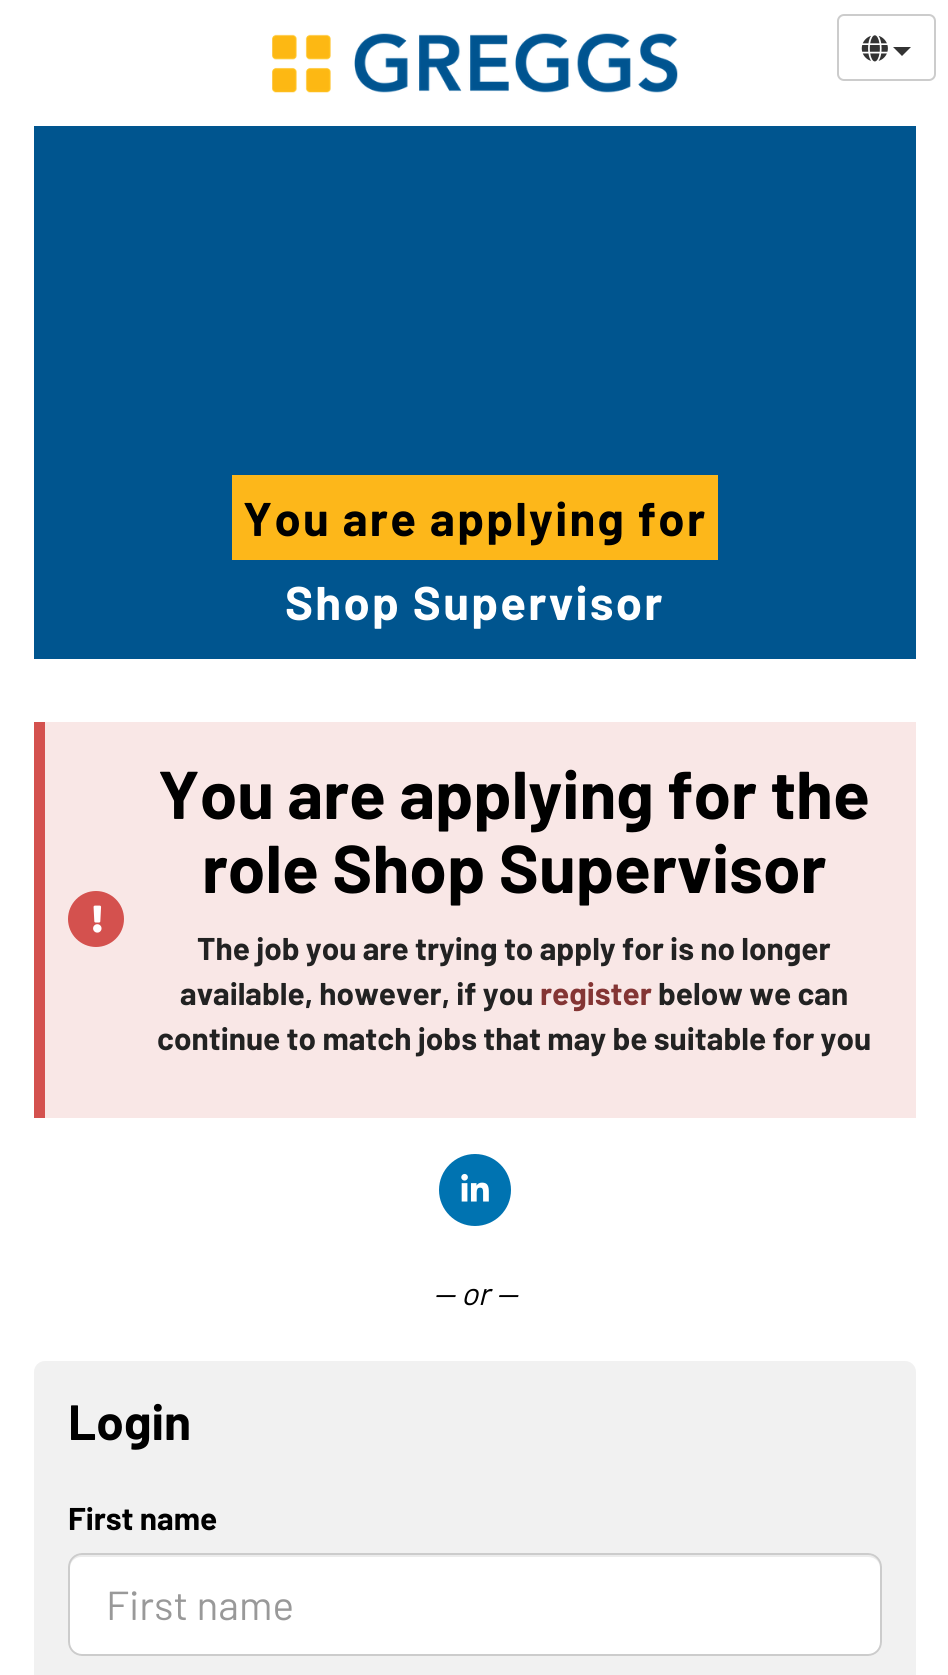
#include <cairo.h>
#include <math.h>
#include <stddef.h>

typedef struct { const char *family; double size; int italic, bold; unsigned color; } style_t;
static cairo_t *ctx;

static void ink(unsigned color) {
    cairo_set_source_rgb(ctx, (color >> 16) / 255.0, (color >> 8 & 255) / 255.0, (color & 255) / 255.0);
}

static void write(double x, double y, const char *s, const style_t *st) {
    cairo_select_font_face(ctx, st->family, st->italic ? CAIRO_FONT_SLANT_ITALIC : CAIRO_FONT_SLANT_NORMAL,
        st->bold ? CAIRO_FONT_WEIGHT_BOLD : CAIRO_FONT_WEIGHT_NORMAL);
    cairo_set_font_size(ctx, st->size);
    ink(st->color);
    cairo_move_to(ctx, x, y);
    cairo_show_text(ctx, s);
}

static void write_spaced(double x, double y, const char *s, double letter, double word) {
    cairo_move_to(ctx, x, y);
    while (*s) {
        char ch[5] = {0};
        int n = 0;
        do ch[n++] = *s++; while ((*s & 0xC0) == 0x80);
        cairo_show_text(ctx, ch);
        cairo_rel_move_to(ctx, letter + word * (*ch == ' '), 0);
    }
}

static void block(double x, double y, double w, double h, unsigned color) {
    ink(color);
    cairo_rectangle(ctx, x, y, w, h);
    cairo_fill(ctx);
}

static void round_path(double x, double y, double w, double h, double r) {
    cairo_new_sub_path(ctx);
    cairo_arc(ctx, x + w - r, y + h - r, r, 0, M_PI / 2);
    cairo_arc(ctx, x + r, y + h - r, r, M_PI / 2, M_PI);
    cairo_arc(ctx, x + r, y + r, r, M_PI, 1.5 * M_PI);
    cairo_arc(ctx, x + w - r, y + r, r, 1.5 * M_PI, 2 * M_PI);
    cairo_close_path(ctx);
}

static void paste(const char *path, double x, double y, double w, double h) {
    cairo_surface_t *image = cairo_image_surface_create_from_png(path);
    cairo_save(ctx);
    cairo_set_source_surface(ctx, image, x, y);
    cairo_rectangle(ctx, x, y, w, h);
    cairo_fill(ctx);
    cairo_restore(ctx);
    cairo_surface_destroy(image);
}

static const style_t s1 = {"Barlow", 67.5, 0, 1, 0x000000};
static const style_t s2 = {"Barlow", 31.5, 0, 1, 0x222222};
static const style_t s3 = {"Barlow", 31.5, 0, 1, 0x843534};
static const style_t s4 = {"Barlow", 31.5, 1, 0, 0x000000};
static const style_t s5 = {"Barlow", 49.5, 0, 1, 0x000000};
static const style_t s6 = {"Barlow", 31.5, 0, 1, 0x000000};
static const style_t s7 = {"Barlow", 40.5, 0, 0, 0x999999};

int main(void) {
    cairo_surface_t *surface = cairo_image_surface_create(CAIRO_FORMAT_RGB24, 948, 1675);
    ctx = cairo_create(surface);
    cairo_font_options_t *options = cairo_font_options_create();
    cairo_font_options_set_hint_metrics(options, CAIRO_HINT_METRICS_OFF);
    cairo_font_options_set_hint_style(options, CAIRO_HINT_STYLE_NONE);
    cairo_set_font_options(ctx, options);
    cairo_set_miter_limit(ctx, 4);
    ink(0xffffff);
    cairo_paint(ctx);
    paste("pic1.png", 272, 33, 406, 60);
    round_path(838, 15, 97, 65, 6);
    ink(0xcccccc);
    cairo_stroke(ctx);
    paste("pic2.png", 861, 35, 27, 27);
    ink(0x333333);
    cairo_new_path(ctx);
    cairo_move_to(ctx, 893, 47);
    cairo_line_to(ctx, 911, 47);
    cairo_line_to(ctx, 902, 56);
    cairo_close_path(ctx);
    cairo_fill(ctx);
    block(34, 126, 882, 533, 0x00558f);
    block(232, 475, 486, 85, 0xfdb71a);
    cairo_select_font_face(ctx, "Barlow", CAIRO_FONT_SLANT_NORMAL, CAIRO_FONT_WEIGHT_BOLD);
    cairo_set_font_size(ctx, 47.25);
    ink(0x000000);
    write_spaced(243, 536, "You are applying for", 2.25, 0);
    ink(0xffffff);
    write_spaced(285, 620, "Shop Supervisor", 2.25, 0);
    block(45, 722, 871, 396, 0xf9e7e6);
    block(34, 722, 11, 396, 0xd4514e);
    cairo_new_path(ctx);
    cairo_arc(ctx, 96, 919, 28, 0, 2 * M_PI);
    cairo_fill(ctx);
    paste("pic3.png", 93, 905, 9, 28);
    write(158, 819, "You are applying for the", &s1);
    write(202, 893, "role Shop Supervisor", &s1);
    write(197, 960, "The job you are trying to apply for is no longer", &s2);
    write(180, 1005, "available, however, if you", &s2);
    write(540, 1005, "register", &s3);
    write(658, 1005, "below we can", &s2);
    write(157, 1050, "continue to match jobs that may be suitable for you", &s2);
    ink(0x0073b1);
    cairo_new_path(ctx);
    cairo_arc(ctx, 475, 1190, 36, 0, 2 * M_PI);
    cairo_fill(ctx);
    paste("pic4.png", 461, 1173, 28, 29);
    write(433, 1305, "— or —", &s4);
    ink(0xf1f1f1);
    round_path(34, 1361, 882, 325, 11);
    cairo_fill(ctx);
    write(68, 1440, "Login", &s5);
    write(68, 1530, "First name", &s6);
    ink(0xffffff);
    round_path(68, 1553, 814, 103, 14);
    cairo_fill(ctx);
    ink(0xececec);
    cairo_new_path(ctx);
    cairo_move_to(ctx, 81, 1557);
    cairo_line_to(ctx, 868, 1557);
    cairo_curve_to(ctx, 875, 1557, 880, 1562, 880, 1568);
    cairo_line_to(ctx, 880, 1566);
    cairo_curve_to(ctx, 880, 1560, 875, 1555, 869, 1555);
    cairo_line_to(ctx, 81, 1555);
    cairo_curve_to(ctx, 75, 1555, 70, 1560, 70, 1566);
    cairo_line_to(ctx, 70, 1568);
    cairo_curve_to(ctx, 70, 1562, 75, 1557, 81, 1557);
    cairo_close_path(ctx);
    cairo_fill(ctx);
    round_path(69, 1554, 812, 101, 13);
    ink(0xcccccc);
    cairo_stroke(ctx);
    write(106, 1620, "First name", &s7);
    cairo_surface_write_to_png(surface, "screenshot.png");
    cairo_font_options_destroy(options);
    cairo_destroy(ctx);
    cairo_surface_destroy(surface);
    return 0;
}
